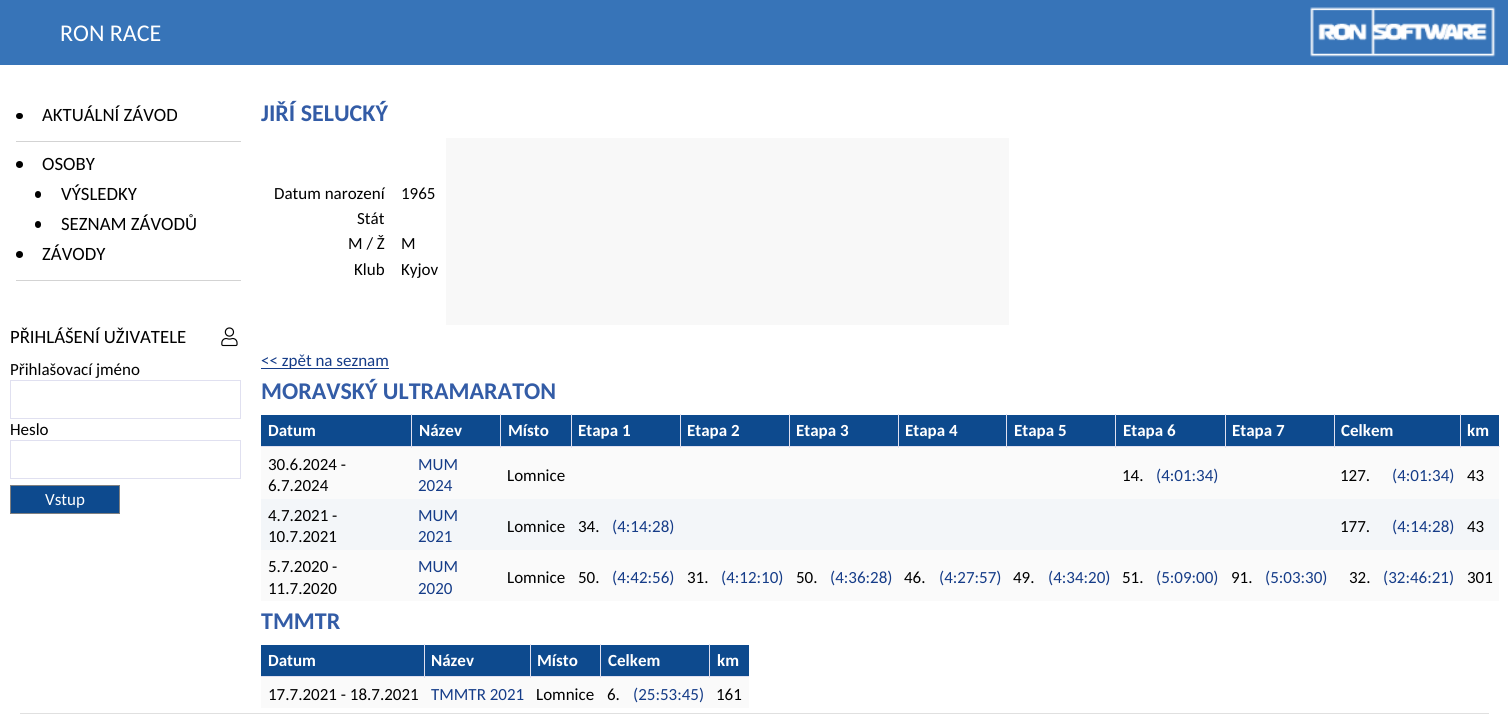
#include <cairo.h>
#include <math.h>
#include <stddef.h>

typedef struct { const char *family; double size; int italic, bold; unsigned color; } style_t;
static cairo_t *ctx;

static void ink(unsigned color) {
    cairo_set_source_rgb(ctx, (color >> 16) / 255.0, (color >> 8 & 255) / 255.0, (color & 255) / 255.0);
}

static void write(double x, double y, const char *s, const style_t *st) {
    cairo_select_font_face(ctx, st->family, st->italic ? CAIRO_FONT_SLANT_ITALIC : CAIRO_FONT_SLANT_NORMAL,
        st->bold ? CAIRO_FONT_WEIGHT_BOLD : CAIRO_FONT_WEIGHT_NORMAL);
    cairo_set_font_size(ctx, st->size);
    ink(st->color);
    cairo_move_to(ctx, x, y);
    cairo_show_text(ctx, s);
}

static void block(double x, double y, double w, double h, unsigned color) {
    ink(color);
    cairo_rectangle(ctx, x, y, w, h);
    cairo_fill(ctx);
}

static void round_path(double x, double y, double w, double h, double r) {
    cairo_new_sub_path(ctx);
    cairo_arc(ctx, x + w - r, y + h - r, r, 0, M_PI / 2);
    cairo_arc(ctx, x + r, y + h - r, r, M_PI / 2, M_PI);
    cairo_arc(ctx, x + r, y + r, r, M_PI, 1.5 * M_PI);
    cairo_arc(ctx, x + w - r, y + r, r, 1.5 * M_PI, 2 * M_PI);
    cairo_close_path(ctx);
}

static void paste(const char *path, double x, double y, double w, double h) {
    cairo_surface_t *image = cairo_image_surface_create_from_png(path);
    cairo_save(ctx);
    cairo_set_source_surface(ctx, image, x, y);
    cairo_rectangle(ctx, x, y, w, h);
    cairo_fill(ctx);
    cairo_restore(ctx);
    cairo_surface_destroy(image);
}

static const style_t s1 = {"Carlito", 24, 0, 0, 0xffffff};
static const style_t s2 = {"Carlito", 18.75, 0, 0, 0x000000};
static const style_t s3 = {"Carlito", 17, 0, 0, 0x000000};
static const style_t s4 = {"Carlito", 17, 0, 0, 0xffffff};
static const style_t s5 = {"Carlito", 24, 0, 1, 0x335ca6};
static const style_t s6 = {"Carlito", 17, 0, 0, 0x153c88};
static const style_t s7 = {"Carlito", 17, 0, 1, 0xffffff};

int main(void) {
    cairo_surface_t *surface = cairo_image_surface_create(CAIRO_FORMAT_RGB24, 1508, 716);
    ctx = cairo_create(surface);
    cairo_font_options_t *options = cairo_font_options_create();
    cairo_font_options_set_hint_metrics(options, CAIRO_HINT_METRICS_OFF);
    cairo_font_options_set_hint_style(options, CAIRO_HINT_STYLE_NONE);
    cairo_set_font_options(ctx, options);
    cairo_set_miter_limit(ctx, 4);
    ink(0xffffff);
    cairo_paint(ctx);
    block(0, 0, 1508, 65, 0x3774b8);
    write(60, 41, "RON RACE", &s1);
    paste("pic1.png", 1310, 7, 186, 50);
    ink(0x000000);
    round_path(16, 113, 7, 6, 3);
    cairo_fill(ctx);
    write(42, 121, "AKTUÁLNÍ ZÁVOD", &s2);
    block(16, 141, 225, 1, 0xd3d3d3);
    ink(0x000000);
    cairo_new_path(ctx);
    cairo_arc(ctx, 19.5, 164.5, 3.5, 0, 2 * M_PI);
    cairo_fill(ctx);
    write(42, 170, "OSOBY", &s2);
    round_path(35, 191, 6, 7, 3);
    cairo_fill(ctx);
    write(61, 200, "VÝSLEDKY", &s2);
    round_path(35, 221, 6, 7, 3);
    cairo_fill(ctx);
    write(61, 230, "SEZNAM ZÁVODŮ", &s2);
    cairo_new_path(ctx);
    cairo_arc(ctx, 19.5, 254.5, 3.5, 0, 2 * M_PI);
    cairo_fill(ctx);
    write(42, 260, "ZÁVODY", &s2);
    block(16, 280, 225, 1, 0xd3d3d3);
    write(10, 343, "PŘIHLÁŠENÍ UŽIVATELE", &s2);
    paste("pic2.png", 221, 327, 17, 20);
    write(10, 375, "Přihlašovací jméno", &s3);
    cairo_rectangle(ctx, 10.5, 380.5, 230, 38);
    ink(0xe0e0f0);
    cairo_set_line_width(ctx, 1);
    cairo_stroke(ctx);
    write(10, 435, "Heslo", &s3);
    cairo_rectangle(ctx, 10.5, 440.5, 230, 38);
    ink(0xe0e0f0);
    cairo_stroke(ctx);
    ink(0x0d4a8e);
    cairo_rectangle(ctx, 10.5, 485.5, 109, 28);
    cairo_fill_preserve(ctx);
    ink(0x808080);
    cairo_stroke(ctx);
    write(45, 505, "Vstup", &s4);
    write(261, 121, "JIŘÍ SELUCKÝ", &s5);
    write(274, 199, "Datum narození", &s3);
    write(401, 199, "1965", &s3);
    write(357, 224, "Stát", &s3);
    write(348, 249, "M / Ž", &s3);
    write(401, 249, "M", &s3);
    write(354, 275, "Klub", &s3);
    write(401, 275, "Kyjov", &s3);
    block(446, 138, 563, 187, 0xf8f8f8);
    block(261, 368, 128, 1, 0x153c88);
    write(261, 366, "<< zpět na seznam", &s6);
    write(261, 399, "MORAVSKÝ ULTRAMARATON", &s5);
    block(261, 447, 1238, 154, 0xfafafa);
    block(261, 415, 150, 31, 0x0d4a8e);
    block(899, 415, 216, 31, 0x0d4a8e);
    block(1460, 446, 40, 1, 0xe0e0f0);
    block(1460, 414, 1, 34, 0xe0e0f0);
    block(1334, 446, 127, 1, 0xe0e0f0);
    block(1334, 414, 1, 34, 0xe0e0f0);
    block(1225, 446, 110, 1, 0xe0e0f0);
    block(1225, 414, 1, 34, 0xe0e0f0);
    block(1115, 446, 111, 1, 0xe0e0f0);
    block(1115, 414, 1, 34, 0xe0e0f0);
    block(1006, 446, 110, 1, 0xe0e0f0);
    block(1006, 414, 1, 34, 0xe0e0f0);
    block(898, 446, 110, 1, 0xe0e0f0);
    block(898, 414, 1, 34, 0xe0e0f0);
    block(789, 446, 110, 1, 0xe0e0f0);
    block(789, 414, 1, 34, 0xe0e0f0);
    block(680, 446, 110, 1, 0xe0e0f0);
    block(680, 414, 1, 34, 0xe0e0f0);
    block(571, 446, 110, 1, 0xe0e0f0);
    block(571, 414, 1, 34, 0xe0e0f0);
    block(500, 446, 73, 1, 0xe0e0f0);
    block(500, 414, 1, 34, 0xe0e0f0);
    block(411, 446, 90, 1, 0xe0e0f0);
    block(411, 414, 1, 34, 0xe0e0f0);
    block(261, 446, 152, 1, 0xe0e0f0);
    write(268, 436, "Datum", &s7);
    block(412, 415, 88, 31, 0x0d4a8e);
    write(419, 436, "Název", &s7);
    block(501, 415, 70, 31, 0x0d4a8e);
    write(508, 436, "Místo", &s7);
    block(572, 415, 108, 31, 0x0d4a8e);
    write(578, 436, "Etapa 1", &s7);
    block(681, 415, 108, 31, 0x0d4a8e);
    write(687, 436, "Etapa 2", &s7);
    block(790, 415, 108, 31, 0x0d4a8e);
    write(796, 436, "Etapa 3", &s7);
    write(905, 436, "Etapa 4", &s7);
    write(1014, 436, "Etapa 5", &s7);
    block(1116, 415, 109, 31, 0x0d4a8e);
    write(1123, 436, "Etapa 6", &s7);
    block(1226, 415, 108, 31, 0x0d4a8e);
    write(1232, 436, "Etapa 7", &s7);
    block(1335, 415, 125, 31, 0x0d4a8e);
    write(1341, 436, "Celkem", &s7);
    block(1461, 415, 38, 31, 0x0d4a8e);
    write(1467, 436, "km", &s7);
    write(268, 470, "30.6.2024 -", &s3);
    write(268, 491, "6.7.2024", &s3);
    write(418, 470, "MUM", &s6);
    write(418, 491, "2024", &s6);
    write(507, 481, "Lomnice", &s3);
    write(1122, 481, "14.", &s3);
    write(1156, 481, "(4:01:34)", &s6);
    write(1340, 481, "127.", &s3);
    write(1392, 481, "(4:01:34)", &s6);
    write(1467, 481, "43", &s3);
    block(261, 499, 1238, 51, 0xf3f6f9);
    write(268, 521, "4.7.2021 -", &s3);
    write(268, 542, "10.7.2021", &s3);
    write(418, 521, "MUM", &s6);
    write(418, 542, "2021", &s6);
    write(507, 532, "Lomnice", &s3);
    write(578, 532, "34.", &s3);
    write(612, 532, "(4:14:28)", &s6);
    write(1340, 532, "177.", &s3);
    write(1392, 532, "(4:14:28)", &s6);
    write(1467, 532, "43", &s3);
    write(268, 572, "5.7.2020 -", &s3);
    write(268, 594, "11.7.2020", &s3);
    write(418, 572, "MUM", &s6);
    write(418, 594, "2020", &s6);
    write(507, 583, "Lomnice", &s3);
    write(578, 583, "50.", &s3);
    write(612, 583, "(4:42:56)", &s6);
    write(687, 583, "31.", &s3);
    write(721, 583, "(4:12:10)", &s6);
    write(796, 583, "50.", &s3);
    write(830, 583, "(4:36:28)", &s6);
    write(904, 583, "46.", &s3);
    write(939, 583, "(4:27:57)", &s6);
    write(1013, 583, "49.", &s3);
    write(1048, 583, "(4:34:20)", &s6);
    write(1122, 583, "51.", &s3);
    write(1156, 583, "(5:09:00)", &s6);
    write(1231, 583, "91.", &s3);
    write(1265, 583, "(5:03:30)", &s6);
    write(1349, 583, "32.", &s3);
    write(1383, 583, "(32:46:21)", &s6);
    write(1467, 583, "301", &s3);
    write(261, 629, "TMMTR", &s5);
    block(261, 677, 488, 31, 0xfafafa);
    block(261, 645, 163, 31, 0x0d4a8e);
    block(709, 676, 40, 1, 0xe0e0f0);
    block(709, 644, 1, 34, 0xe0e0f0);
    block(600, 676, 110, 1, 0xe0e0f0);
    block(600, 644, 1, 34, 0xe0e0f0);
    block(530, 676, 71, 1, 0xe0e0f0);
    block(530, 644, 1, 34, 0xe0e0f0);
    block(424, 676, 107, 1, 0xe0e0f0);
    block(424, 644, 1, 34, 0xe0e0f0);
    block(261, 676, 164, 1, 0xe0e0f0);
    write(268, 666, "Datum", &s7);
    block(425, 645, 105, 31, 0x0d4a8e);
    write(431, 666, "Název", &s7);
    block(531, 645, 69, 31, 0x0d4a8e);
    write(537, 666, "Místo", &s7);
    block(601, 645, 108, 31, 0x0d4a8e);
    write(608, 666, "Celkem", &s7);
    block(710, 645, 39, 31, 0x0d4a8e);
    write(717, 666, "km", &s7);
    write(268, 700, "17.7.2021 - 18.7.2021", &s3);
    write(431, 700, "TMMTR 2021", &s6);
    write(536, 700, "Lomnice", &s3);
    write(607, 700, "6.", &s3);
    write(633, 700, "(25:53:45)", &s6);
    write(716, 700, "161", &s3);
    block(20, 713, 1469, 1, 0xe0e0e0);
    cairo_surface_write_to_png(surface, "screenshot.png");
    cairo_font_options_destroy(options);
    cairo_destroy(ctx);
    cairo_surface_destroy(surface);
    return 0;
}
